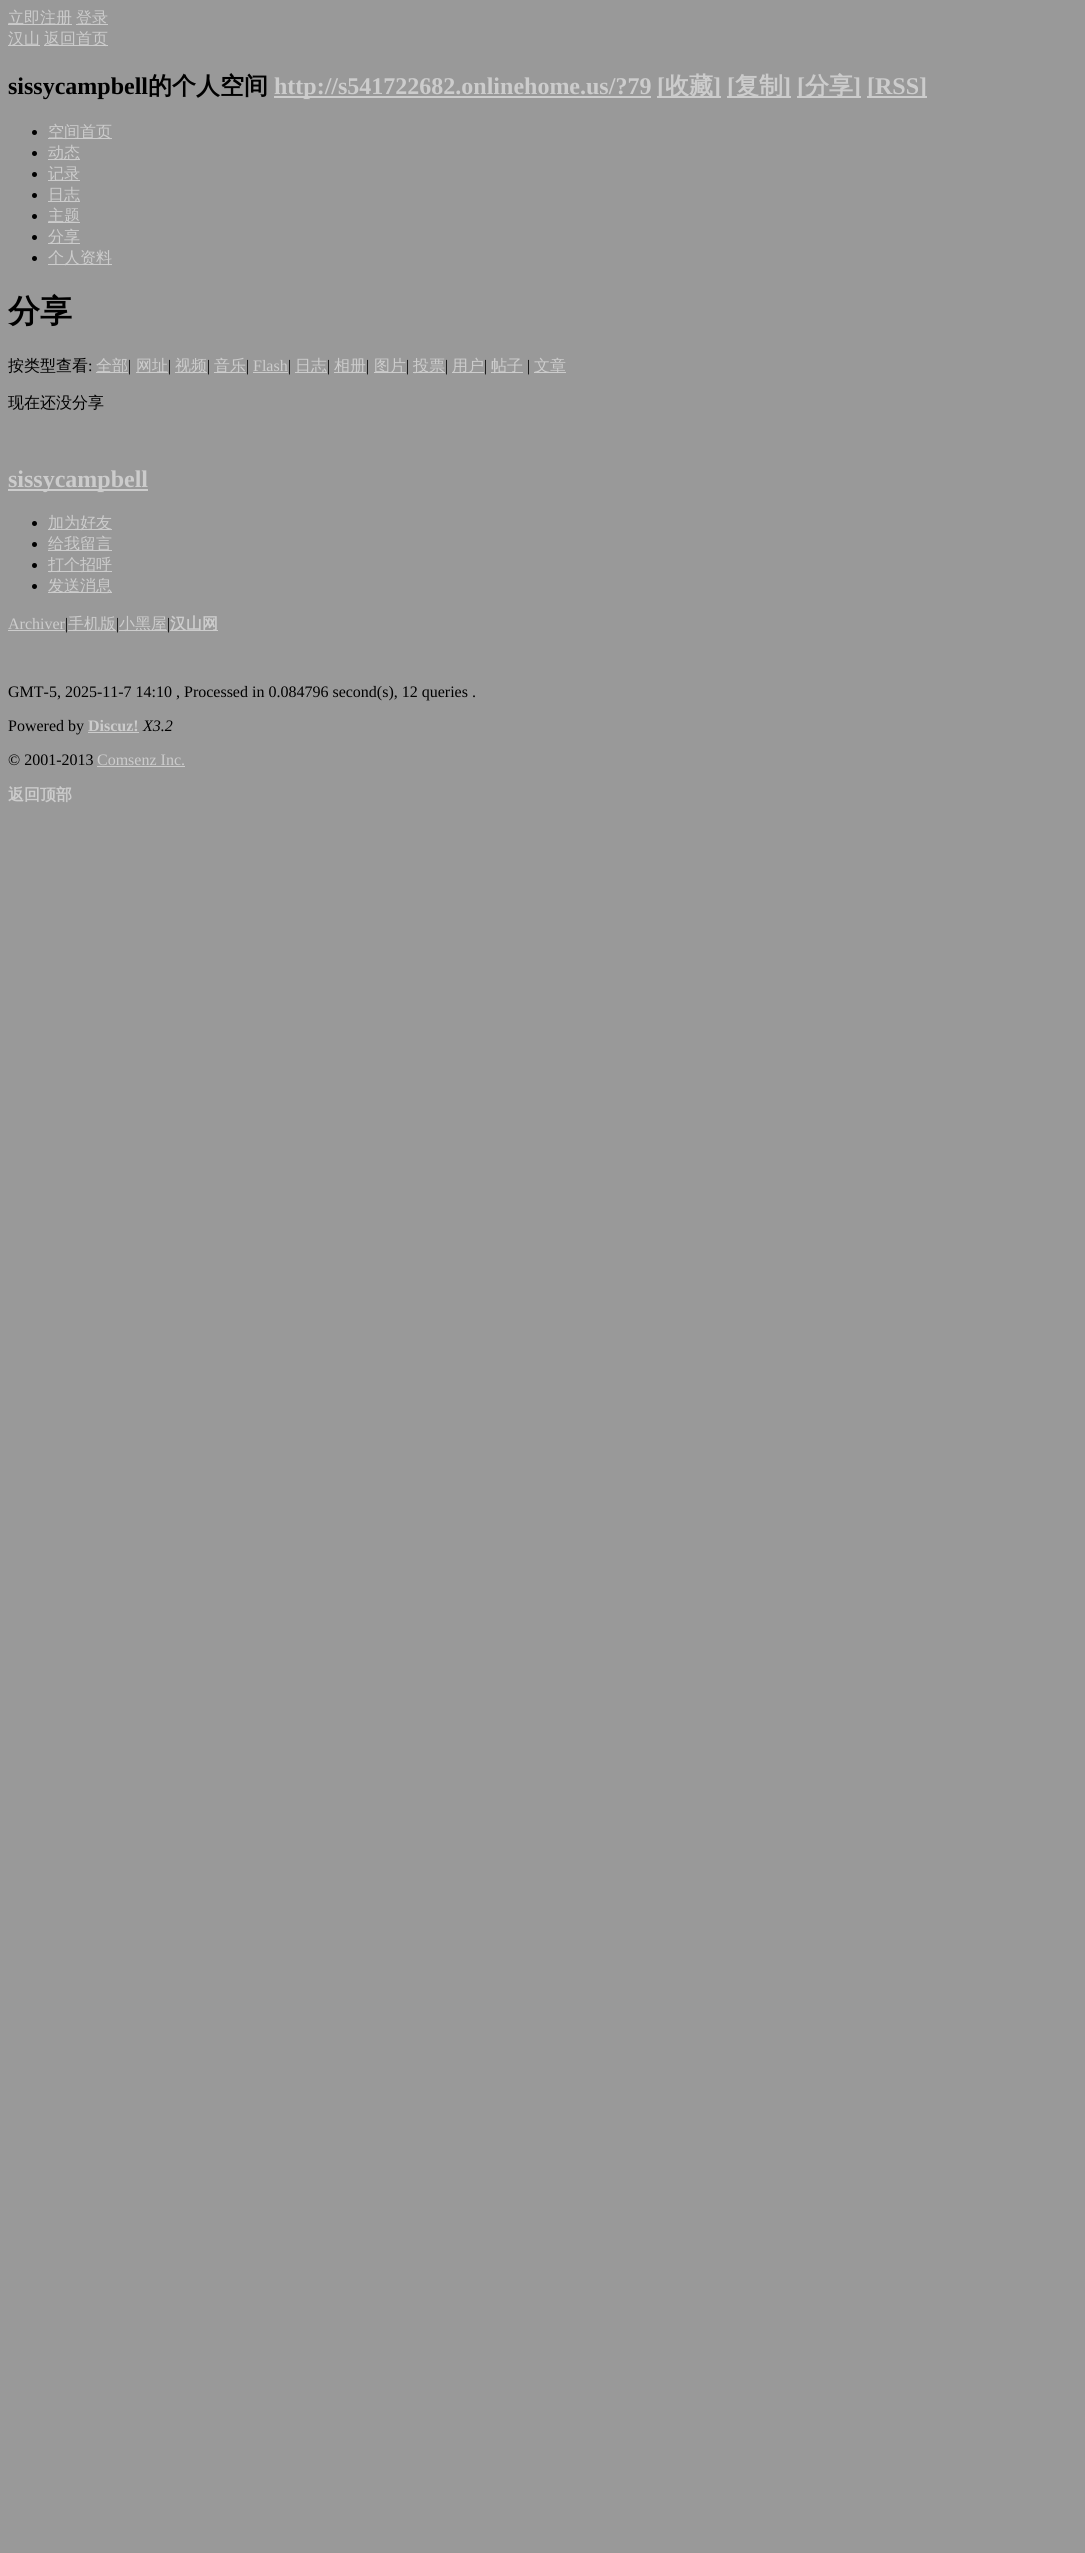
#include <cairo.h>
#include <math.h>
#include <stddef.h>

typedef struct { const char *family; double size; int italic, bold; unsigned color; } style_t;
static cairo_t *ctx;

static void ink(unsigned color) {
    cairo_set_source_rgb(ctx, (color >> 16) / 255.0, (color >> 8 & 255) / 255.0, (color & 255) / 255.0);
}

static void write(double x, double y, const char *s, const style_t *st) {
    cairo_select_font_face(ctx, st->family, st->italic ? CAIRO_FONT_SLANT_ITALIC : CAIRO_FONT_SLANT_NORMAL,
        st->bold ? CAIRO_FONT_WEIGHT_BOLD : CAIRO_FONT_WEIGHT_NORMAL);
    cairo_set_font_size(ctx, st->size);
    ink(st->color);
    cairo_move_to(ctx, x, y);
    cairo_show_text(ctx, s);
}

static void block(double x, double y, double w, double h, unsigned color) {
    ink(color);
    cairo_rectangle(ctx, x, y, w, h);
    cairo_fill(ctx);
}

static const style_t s1 = {"WenQuanYi Zen Hei Medium", 16, 0, 0, 0xcccccc};
static const style_t s2 = {"Liberation Serif", 24, 0, 1, 0x000000};
static const style_t s3 = {"WenQuanYi Zen Hei", 24, 0, 1, 0x000000};
static const style_t s4 = {"Liberation Serif", 24, 0, 1, 0xcccccc};
static const style_t s5 = {"WenQuanYi Zen Hei", 24, 0, 1, 0xcccccc};
static const style_t s6 = {"WenQuanYi Zen Hei", 32, 0, 1, 0x000000};
static const style_t s7 = {"WenQuanYi Zen Hei Medium", 16, 0, 0, 0x000000};
static const style_t s8 = {"Liberation Serif", 16, 0, 0, 0x000000};
static const style_t s9 = {"Liberation Serif", 16, 0, 0, 0xcccccc};
static const style_t s10 = {"WenQuanYi Zen Hei", 16, 0, 1, 0xcccccc};
static const style_t s11 = {"Liberation Serif", 16, 0, 1, 0xcccccc};
static const style_t s12 = {"Liberation Serif", 16, 1, 0, 0x000000};

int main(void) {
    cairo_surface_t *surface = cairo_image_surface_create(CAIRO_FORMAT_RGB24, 1085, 2553);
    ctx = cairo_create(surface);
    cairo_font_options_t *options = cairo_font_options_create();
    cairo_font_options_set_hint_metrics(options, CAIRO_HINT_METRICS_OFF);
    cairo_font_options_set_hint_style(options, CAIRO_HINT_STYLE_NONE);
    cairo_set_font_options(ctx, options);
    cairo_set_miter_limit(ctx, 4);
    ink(0x999999);
    cairo_paint(ctx);
    block(8, 24, 64, 1, 0xcccccc);
    write(8, 23, "立即注册", &s1);
    block(76, 24, 32, 1, 0xcccccc);
    write(76, 23, "登录", &s1);
    block(8, 45, 32, 1, 0xcccccc);
    write(8, 44, "汉山", &s1);
    block(44, 45, 64, 1, 0xcccccc);
    write(44, 44, "返回首页", &s1);
    write(8, 94, "sissycampbell", &s2);
    write(148, 94, "的个人空间", &s3);
    block(274, 96, 377, 2, 0xcccccc);
    write(274, 94, "http://s541722682.onlinehome.us/?79", &s4);
    block(657, 96, 64, 2, 0xcccccc);
    write(657, 94, "[", &s4);
    write(665, 94, "收藏", &s5);
    write(713, 94, "]", &s4);
    block(727, 96, 64, 2, 0xcccccc);
    write(727, 94, "[", &s4);
    write(735, 94, "复制", &s5);
    write(783, 94, "]", &s4);
    block(797, 96, 64, 2, 0xcccccc);
    write(797, 94, "[", &s4);
    write(805, 94, "分享", &s5);
    write(853, 94, "]", &s4);
    block(867, 96, 60, 2, 0xcccccc);
    write(867, 94, "[RSS]", &s4);
    ink(0x000000);
    cairo_new_path(ctx);
    cairo_arc(ctx, 34.5, 132.5, 2.5, 0, 2 * M_PI);
    cairo_fill(ctx);
    block(48, 138, 64, 1, 0xcccccc);
    write(48, 137, "空间首页", &s1);
    ink(0x000000);
    cairo_new_path(ctx);
    cairo_arc(ctx, 34.5, 153.5, 2.5, 0, 2 * M_PI);
    cairo_fill(ctx);
    block(48, 159, 32, 1, 0xcccccc);
    write(48, 158, "动态", &s1);
    ink(0x000000);
    cairo_new_path(ctx);
    cairo_arc(ctx, 34.5, 174.5, 2.5, 0, 2 * M_PI);
    cairo_fill(ctx);
    block(48, 180, 32, 1, 0xcccccc);
    write(48, 179, "记录", &s1);
    ink(0x000000);
    cairo_new_path(ctx);
    cairo_arc(ctx, 34.5, 195.5, 2.5, 0, 2 * M_PI);
    cairo_fill(ctx);
    block(48, 201, 32, 1, 0xcccccc);
    write(48, 200, "日志", &s1);
    ink(0x000000);
    cairo_new_path(ctx);
    cairo_arc(ctx, 34.5, 216.5, 2.5, 0, 2 * M_PI);
    cairo_fill(ctx);
    block(48, 222, 32, 1, 0xcccccc);
    write(48, 221, "主题", &s1);
    ink(0x000000);
    cairo_new_path(ctx);
    cairo_arc(ctx, 34.5, 237.5, 2.5, 0, 2 * M_PI);
    cairo_fill(ctx);
    block(48, 243, 32, 1, 0xcccccc);
    write(48, 242, "分享", &s1);
    ink(0x000000);
    cairo_new_path(ctx);
    cairo_arc(ctx, 34.5, 258.5, 2.5, 0, 2 * M_PI);
    cairo_fill(ctx);
    block(48, 264, 64, 1, 0xcccccc);
    write(48, 263, "个人资料", &s1);
    write(8, 322, "分享", &s6);
    write(8, 371, "按类型查看", &s7);
    write(88, 371, ":", &s8);
    block(96, 372, 32, 1, 0xcccccc);
    write(96, 371, "全部", &s1);
    write(128, 371, "|", &s8);
    block(136, 372, 32, 1, 0xcccccc);
    write(136, 371, "网址", &s1);
    write(168, 371, "|", &s8);
    block(175, 372, 32, 1, 0xcccccc);
    write(175, 371, "视频", &s1);
    write(207, 371, "|", &s8);
    block(214, 372, 32, 1, 0xcccccc);
    write(214, 371, "音乐", &s1);
    write(246, 371, "|", &s8);
    write(253, 371, "Flash", &s9);
    block(253, 372, 35, 1, 0xcccccc);
    write(288, 371, "|", &s8);
    block(295, 372, 32, 1, 0xcccccc);
    write(295, 371, "日志", &s1);
    write(327, 371, "|", &s8);
    block(334, 372, 32, 1, 0xcccccc);
    write(334, 371, "相册", &s1);
    write(366, 371, "|", &s8);
    block(374, 372, 32, 1, 0xcccccc);
    write(374, 371, "图片", &s1);
    write(406, 371, "|", &s8);
    block(413, 372, 32, 1, 0xcccccc);
    write(413, 371, "投票", &s1);
    write(445, 371, "|", &s8);
    block(452, 372, 32, 1, 0xcccccc);
    write(452, 371, "用户", &s1);
    write(484, 371, "|", &s8);
    block(491, 372, 32, 1, 0xcccccc);
    write(491, 371, "帖子", &s1);
    write(527, 371, "|", &s8);
    block(534, 372, 32, 1, 0xcccccc);
    write(534, 371, "文章", &s1);
    write(8, 408, "现在还没分享", &s7);
    block(8, 489, 140, 2, 0xcccccc);
    write(8, 487, "sissycampbell", &s4);
    ink(0x000000);
    cairo_new_path(ctx);
    cairo_arc(ctx, 34.5, 523.5, 2.5, 0, 2 * M_PI);
    cairo_fill(ctx);
    block(48, 529, 64, 1, 0xcccccc);
    write(48, 528, "加为好友", &s1);
    ink(0x000000);
    cairo_new_path(ctx);
    cairo_arc(ctx, 34.5, 544.5, 2.5, 0, 2 * M_PI);
    cairo_fill(ctx);
    block(48, 550, 64, 1, 0xcccccc);
    write(48, 549, "给我留言", &s1);
    ink(0x000000);
    cairo_new_path(ctx);
    cairo_arc(ctx, 34.5, 565.5, 2.5, 0, 2 * M_PI);
    cairo_fill(ctx);
    block(48, 571, 64, 1, 0xcccccc);
    write(48, 570, "打个招呼", &s1);
    ink(0x000000);
    cairo_new_path(ctx);
    cairo_arc(ctx, 34.5, 586.5, 2.5, 0, 2 * M_PI);
    cairo_fill(ctx);
    block(48, 592, 64, 1, 0xcccccc);
    write(48, 591, "发送消息", &s1);
    write(8, 629, "Archiver", &s9);
    block(8, 630, 57, 1, 0xcccccc);
    write(65, 629, "|", &s8);
    block(68, 630, 48, 1, 0xcccccc);
    write(68, 629, "手机版", &s1);
    write(116, 629, "|", &s8);
    block(119, 630, 48, 1, 0xcccccc);
    write(119, 629, "小黑屋", &s1);
    write(167, 629, "|", &s8);
    block(170, 630, 48, 1, 0xcccccc);
    write(170, 629, "汉山网", &s10);
    write(8, 697, "GMT-5, 2025-11-7 14:10 , Processed in 0.084796 second(s), 12 queries .", &s8);
    write(8, 731, "Powered by", &s8);
    write(88, 731, "Discuz!", &s11);
    block(88, 732, 51, 1, 0xcccccc);
    write(143, 731, "X3.2", &s12);
    write(8, 765, "© 2001-2013", &s8);
    write(97, 765, "Comsenz Inc.", &s9);
    block(97, 766, 88, 1, 0xcccccc);
    write(8, 800, "返回顶部", &s10);
    cairo_surface_write_to_png(surface, "screenshot.png");
    cairo_font_options_destroy(options);
    cairo_destroy(ctx);
    cairo_surface_destroy(surface);
    return 0;
}
